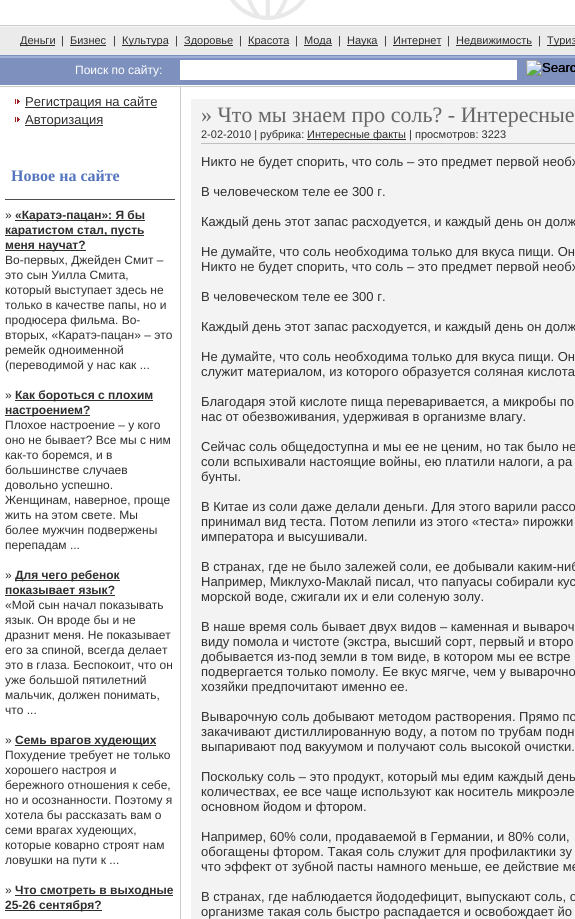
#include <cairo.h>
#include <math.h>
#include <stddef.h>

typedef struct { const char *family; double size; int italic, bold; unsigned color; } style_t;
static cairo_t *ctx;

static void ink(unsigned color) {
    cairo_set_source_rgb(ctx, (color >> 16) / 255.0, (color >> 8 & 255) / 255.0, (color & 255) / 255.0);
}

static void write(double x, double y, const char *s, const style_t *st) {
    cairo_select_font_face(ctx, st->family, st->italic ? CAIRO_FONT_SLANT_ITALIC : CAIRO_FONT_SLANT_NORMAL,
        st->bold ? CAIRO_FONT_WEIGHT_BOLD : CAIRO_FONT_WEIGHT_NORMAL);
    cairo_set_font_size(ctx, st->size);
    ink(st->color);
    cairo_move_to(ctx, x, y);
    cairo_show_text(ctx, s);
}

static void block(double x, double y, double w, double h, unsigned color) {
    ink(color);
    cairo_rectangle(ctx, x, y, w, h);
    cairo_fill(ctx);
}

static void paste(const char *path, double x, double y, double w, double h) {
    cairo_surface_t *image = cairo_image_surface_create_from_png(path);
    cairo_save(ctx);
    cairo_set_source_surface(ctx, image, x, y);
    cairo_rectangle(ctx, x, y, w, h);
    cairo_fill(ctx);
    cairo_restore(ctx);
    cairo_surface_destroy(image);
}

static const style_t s1 = {"Liberation Sans", 11, 0, 0, 0x2f2f2f};
static const style_t s2 = {"Liberation Sans", 12, 0, 0, 0xffffff};
static const style_t s3 = {"Liberation Sans", 13, 0, 0, 0x000000};
static const style_t s4 = {"Liberation Sans", 13, 0, 0, 0x2f2f2f};
static const style_t s5 = {"Liberation Serif", 16, 0, 1, 0x5575be};
static const style_t s6 = {"Liberation Sans", 12, 0, 0, 0x2f2f2f};
static const style_t s7 = {"Liberation Sans", 12, 0, 1, 0x2f2f2f};
static const style_t s8 = {"Liberation Serif", 22, 0, 0, 0x666666};

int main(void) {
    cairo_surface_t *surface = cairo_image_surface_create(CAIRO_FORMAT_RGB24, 575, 919);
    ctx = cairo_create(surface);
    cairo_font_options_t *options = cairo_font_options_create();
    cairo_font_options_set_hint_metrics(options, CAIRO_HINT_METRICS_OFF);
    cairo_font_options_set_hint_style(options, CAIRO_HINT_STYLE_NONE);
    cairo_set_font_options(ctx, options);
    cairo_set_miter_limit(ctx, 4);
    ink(0xffffff);
    cairo_paint(ctx);
    paste("pic1.png", 0, 25, 575, 62);
    paste("pic2.png", 230, 0, 76, 20);
    block(20, 45, 35, 1, 0x2f2f2f);
    write(20, 44, "Деньги", &s1);
    write(61, 44, "|", &s1);
    write(70, 44, "Бизнес", &s1);
    block(70, 45, 36, 1, 0x2f2f2f);
    write(113, 44, "|", &s1);
    block(122, 45, 46, 1, 0x2f2f2f);
    write(122, 44, "Культура", &s1);
    write(175, 44, "|", &s1);
    block(184, 45, 49, 1, 0x2f2f2f);
    write(184, 44, "Здоровье", &s1);
    write(239, 44, "|", &s1);
    block(248, 45, 41, 1, 0x2f2f2f);
    write(248, 44, "Красота", &s1);
    write(295, 44, "|", &s1);
    block(304, 45, 28, 1, 0x2f2f2f);
    write(304, 44, "Мода", &s1);
    write(338, 44, "|", &s1);
    block(347, 45, 31, 1, 0x2f2f2f);
    write(347, 44, "Наука", &s1);
    write(384, 44, "|", &s1);
    block(393, 45, 48, 1, 0x2f2f2f);
    write(393, 44, "Интернет", &s1);
    write(447, 44, "|", &s1);
    block(456, 45, 76, 1, 0x2f2f2f);
    write(456, 44, "Недвижимость", &s1);
    write(538, 44, "|", &s1);
    block(547, 45, 28, 1, 0x2f2f2f);
    write(547, 44, "Туриз", &s1);
    write(75, 74, "Поиск по сайту:", &s2);
    block(180, 60, 337, 20, 0xffffff);
    paste("pic3.png", 526, 60, 49, 16);
    write(542, 72, "Searc", &s3);
    paste("pic4.png", 15, 99, 5, 5);
    block(25, 107, 132, 1, 0x2f2f2f);
    write(25, 106, "Регистрация на сайте", &s4);
    paste("pic4.png", 15, 117, 5, 5);
    block(25, 125, 78, 1, 0x2f2f2f);
    write(25, 124, "Авторизация", &s4);
    write(11, 181, "Новое на сайте", &s5);
    block(5, 199, 170, 1, 0x4d4c48);
    write(5, 219, "»", &s6);
    block(15, 220, 130, 1, 0x2f2f2f);
    write(15, 219, "«Каратэ-пацан»: Я бы", &s7);
    block(5, 235, 139, 1, 0x2f2f2f);
    write(5, 234, "каратистом стал, пусть", &s7);
    block(5, 250, 81, 1, 0x2f2f2f);
    write(5, 249, "меня научат?", &s7);
    write(5, 264, "Во-первых, Джейден Смит –", &s6);
    write(5, 279, "это сын Уилла Смита,", &s6);
    write(5, 294, "который выступает здесь не", &s6);
    write(5, 309, "только в качестве папы, но и", &s6);
    write(5, 324, "продюсера фильма. Во-", &s6);
    write(5, 339, "вторых, «Каратэ-пацан» – это", &s6);
    write(5, 354, "ремейк одноименной", &s6);
    write(5, 369, "(переводимой у нас как ...", &s6);
    write(5, 399, "»", &s6);
    block(15, 400, 138, 1, 0x2f2f2f);
    write(15, 399, "Как бороться с плохим", &s7);
    block(5, 415, 85, 1, 0x2f2f2f);
    write(5, 414, "настроением?", &s7);
    write(5, 429, "Плохое настроение – у кого", &s6);
    write(5, 444, "оно не бывает? Все мы с ним", &s6);
    write(5, 459, "как-то боремся, и в", &s6);
    write(5, 474, "большинстве случаев", &s6);
    write(5, 489, "довольно успешно.", &s6);
    write(5, 504, "Женщинам, наверное, проще", &s6);
    write(5, 519, "жить на этом свете. Мы", &s6);
    write(5, 534, "более мужчин подвержены", &s6);
    write(5, 549, "перепадам ...", &s6);
    write(5, 579, "»", &s6);
    block(15, 580, 105, 1, 0x2f2f2f);
    write(15, 579, "Для чего ребенок", &s7);
    write(5, 594, "показывает язык?", &s7);
    block(5, 595, 110, 1, 0x2f2f2f);
    write(5, 609, "«Мой сын начал показывать", &s6);
    write(5, 624, "язык. Он вроде бы и не", &s6);
    write(5, 639, "дразнит меня. Не показывает", &s6);
    write(5, 654, "его за спиной, всегда делает", &s6);
    write(5, 669, "это в глаза. Беспокоит, что он", &s6);
    write(5, 684, "уже большой пятилетний", &s6);
    write(5, 699, "мальчик, должен понимать,", &s6);
    write(5, 714, "что ...", &s6);
    write(5, 744, "»", &s6);
    block(15, 745, 141, 1, 0x2f2f2f);
    write(15, 744, "Семь врагов худеющих", &s7);
    write(5, 759, "Похудение требует не только", &s6);
    write(5, 774, "хорошего настроя и", &s6);
    write(5, 789, "бережного отношения к себе,", &s6);
    write(5, 804, "но и осознанности. Поэтому я", &s6);
    write(5, 819, "хотела бы рассказать вам о", &s6);
    write(5, 834, "семи врагах худеющих,", &s6);
    write(5, 849, "которые коварно строят нам", &s6);
    write(5, 864, "ловушки на пути к ...", &s6);
    write(5, 894, "»", &s6);
    block(15, 895, 158, 1, 0x2f2f2f);
    write(15, 894, "Что смотреть в выходные", &s7);
    block(5, 910, 97, 1, 0x2f2f2f);
    write(5, 909, "25-26 сентября?", &s7);
    block(180, 87, 1, 832, 0xcbcbcb);
    block(191, 99, 384, 820, 0xf3f3f3);
    write(201, 122, "» Что мы знаем про соль? - Интересные", &s8);
    write(201, 138, "2-02-2010 | рубрика:", &s1);
    block(307, 139, 99, 1, 0x2f2f2f);
    write(307, 138, "Интересные факты | просмотров: 3223", &s1);
    block(201, 143, 374, 1, 0xc0c0c0);
    write(201, 166, "Никто не будет спорить, что соль – это предмет первой необх", &s4);
    write(201, 196, "В человеческом теле ее 300 г.", &s4);
    write(201, 226, "Каждый день этот запас расходуется, и каждый день он долж", &s4);
    write(201, 256, "Не думайте, что соль необходима только для вкуса пищи. Он", &s4);
    write(201, 271, "Никто не будет спорить, что соль – это предмет первой необх", &s4);
    write(201, 301, "В человеческом теле ее 300 г.", &s4);
    write(201, 331, "Каждый день этот запас расходуется, и каждый день он долж", &s4);
    write(201, 361, "Не думайте, что соль необходима только для вкуса пищи. Он", &s4);
    write(201, 376, "служит материалом, из которого образуется соляная кислота", &s4);
    write(201, 406, "Благодаря этой кислоте пища переваривается, а микробы по", &s4);
    write(201, 421, "нас от обезвоживания, удерживая в организме влагу.", &s4);
    write(201, 451, "Сейчас соль общедоступна и мы ее не ценим, но так было не", &s4);
    write(201, 466, "соли вспыхивали настоящие войны, ею платили налоги, а ра", &s4);
    write(201, 481, "бунты.", &s4);
    write(201, 511, "В Китае из соли даже делали деньги. Для этого варили рассо", &s4);
    write(201, 526, "принимал вид теста. Потом лепили из этого «теста» пирожки", &s4);
    write(201, 541, "императора и высушивали.", &s4);
    write(201, 571, "В странах, где не было залежей соли, ее добывали каким-ниб", &s4);
    write(201, 586, "Например, Миклухо-Маклай писал, что папуасы собирали кус", &s4);
    write(201, 601, "морской воде, сжигали их и ели соленую золу.", &s4);
    write(201, 631, "В наше время соль бывает двух видов – каменная и вывароч", &s4);
    write(201, 646, "виду помола и чистоте (экстра, высший сорт, первый и второ", &s4);
    write(201, 661, "добывается из-под земли в том виде, в котором мы ее встре", &s4);
    write(201, 676, "подвергается только помолу. Ее вкус мягче, чем у выварочно", &s4);
    write(201, 691, "хозяйки предпочитают именно ее.", &s4);
    write(201, 721, "Выварочную соль добывают методом растворения. Прямо по", &s4);
    write(201, 736, "закачивают дистиллированную воду, а потом по трубам подн", &s4);
    write(201, 751, "выпаривают под вакуумом и получают соль высокой очистки.", &s4);
    write(201, 781, "Поскольку соль – это продукт, который мы едим каждый день", &s4);
    write(201, 796, "количествах, ее все чаще используют как носитель микроэле", &s4);
    write(201, 811, "основном йодом и фтором.", &s4);
    write(201, 841, "Например, 60% соли, продаваемой в Германии, и 80% соли,", &s4);
    write(201, 856, "обогащены фтором. Такая соль служит для профилактики зу", &s4);
    write(201, 871, "что эффект от зубной пасты намного меньше, ее действие ме", &s4);
    write(201, 901, "В странах, где наблюдается йододефицит, выпускают соль, о", &s4);
    write(201, 916, "организме такая соль быстро распадается и освобождает йо", &s4);
    cairo_surface_write_to_png(surface, "screenshot.png");
    cairo_font_options_destroy(options);
    cairo_destroy(ctx);
    cairo_surface_destroy(surface);
    return 0;
}
